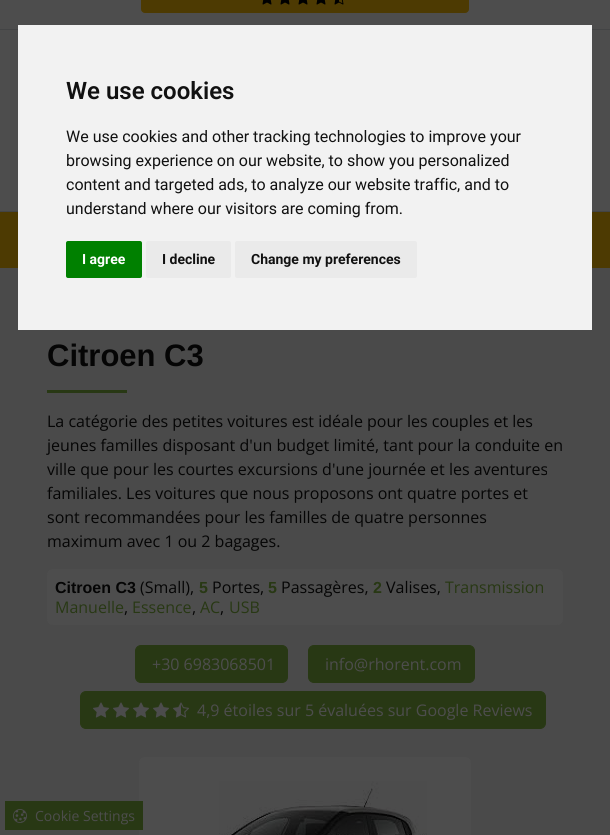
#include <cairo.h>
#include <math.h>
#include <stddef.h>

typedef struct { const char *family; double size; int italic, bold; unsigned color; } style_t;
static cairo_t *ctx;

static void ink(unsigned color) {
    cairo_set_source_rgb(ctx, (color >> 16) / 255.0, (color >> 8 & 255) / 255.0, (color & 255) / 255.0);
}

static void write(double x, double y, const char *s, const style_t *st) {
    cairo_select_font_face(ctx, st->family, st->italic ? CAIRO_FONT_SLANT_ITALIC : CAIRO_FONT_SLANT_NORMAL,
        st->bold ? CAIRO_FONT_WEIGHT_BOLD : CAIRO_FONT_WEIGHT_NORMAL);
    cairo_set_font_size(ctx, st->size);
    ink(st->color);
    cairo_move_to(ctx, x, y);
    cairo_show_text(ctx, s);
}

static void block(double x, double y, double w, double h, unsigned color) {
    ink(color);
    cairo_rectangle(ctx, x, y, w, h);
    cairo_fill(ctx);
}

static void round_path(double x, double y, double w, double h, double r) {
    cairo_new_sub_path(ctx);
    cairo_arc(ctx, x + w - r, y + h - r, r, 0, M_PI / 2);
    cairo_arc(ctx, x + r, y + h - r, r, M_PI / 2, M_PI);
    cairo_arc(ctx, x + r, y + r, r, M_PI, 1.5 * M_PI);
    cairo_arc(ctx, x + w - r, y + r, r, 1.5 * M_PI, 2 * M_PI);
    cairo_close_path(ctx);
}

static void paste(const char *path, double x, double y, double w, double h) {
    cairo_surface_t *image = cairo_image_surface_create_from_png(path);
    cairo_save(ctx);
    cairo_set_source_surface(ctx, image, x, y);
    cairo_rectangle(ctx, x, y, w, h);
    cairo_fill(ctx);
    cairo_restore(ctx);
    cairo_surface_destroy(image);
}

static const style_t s1 = {"Roboto SemiBold", 24, 0, 0, 0x111111};
static const style_t s2 = {"Roboto", 16, 0, 0, 0x111111};
static const style_t s3 = {"Roboto", 14, 0, 1, 0xffffff};
static const style_t s4 = {"Roboto", 14, 0, 1, 0x111111};
static const style_t s5 = {"Liberation Sans", 31, 0, 1, 0x050505};
static const style_t s6 = {"Open Sans", 16, 0, 0, 0x050505};
static const style_t s7 = {"Liberation Sans", 16, 0, 1, 0x050505};
static const style_t s8 = {"Liberation Sans", 16, 0, 1, 0x283814};
static const style_t s9 = {"Open Sans", 16, 0, 0, 0x283814};
static const style_t s10 = {"Open Sans", 16, 0, 0, 0x4d4d4d};
static const style_t s11 = {"Open Sans", 14, 0, 0, 0x4d4d4d};

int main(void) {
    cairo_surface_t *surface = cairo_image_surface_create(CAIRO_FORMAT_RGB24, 610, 835);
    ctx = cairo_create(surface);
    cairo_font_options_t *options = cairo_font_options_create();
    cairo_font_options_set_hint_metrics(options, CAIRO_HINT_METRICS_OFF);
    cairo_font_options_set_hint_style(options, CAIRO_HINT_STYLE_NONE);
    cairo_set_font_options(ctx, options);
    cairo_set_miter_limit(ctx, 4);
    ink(0x4d4d4d);
    cairo_paint(ctx);
    block(0, 29, 610, 1, 0x434445);
    ink(0x4d3a02);
    round_path(141.5, -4.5, 327, 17, 3.5);
    cairo_fill_preserve(ctx);
    cairo_set_line_width(ctx, 1);
    cairo_stroke(ctx);
    paste("pic1.png", 262, 0, 10, 5);
    paste("pic1.png", 280, 0, 10, 5);
    paste("pic1.png", 298, 0, 10, 5);
    paste("pic1.png", 316, 0, 10, 5);
    paste("pic2.png", 334, 0, 10, 5);
    block(0, 211, 610, 1, 0x434445);
    block(0, 212, 610, 56, 0x4d3a02);
    block(0, 268, 610, 567, 0x4a4a4a);
    block(18, 25, 574, 305, 0xf2f2f2);
    write(66, 99, "We use cookies", &s1);
    write(66, 142, "We use cookies and other tracking technologies to improve your", &s2);
    write(66, 166, "browsing experience on our website, to show you personalized", &s2);
    write(66, 190, "content and targeted ads, to analyze our website traffic, and to", &s2);
    write(66, 214, "understand where our visitors are coming from.", &s2);
    ink(0x008000);
    round_path(66, 241, 76, 37, 2);
    cairo_fill(ctx);
    write(82, 264, "I agree", &s3);
    ink(0xeaeaea);
    round_path(146, 241, 85, 37, 2);
    cairo_fill(ctx);
    write(162, 264, "I decline", &s4);
    ink(0xeaeaea);
    round_path(235, 241, 182, 37, 2);
    cairo_fill(ctx);
    write(251, 264, "Change my preferences", &s4);
    write(47, 366, "Citroen C3", &s5);
    block(47, 390, 80, 3, 0x283814);
    write(47, 427, "La catégorie des petites voitures est idéale pour les couples et les", &s6);
    write(47, 451, "jeunes familles disposant d'un budget limité, tant pour la conduite en", &s6);
    write(47, 475, "ville que pour les courtes excursions d'une journée et les aventures", &s6);
    write(47, 499, "familiales. Les voitures que nous proposons ont quatre portes et", &s6);
    write(47, 523, "sont recommandées pour les familles de quatre personnes", &s6);
    write(47, 547, "maximum avec 1 ou 2 bagages.", &s6);
    ink(0x4d4d4d);
    round_path(47, 569, 516, 56, 6);
    cairo_fill(ctx);
    write(55, 593, "Citroen C3", &s7);
    write(140, 593, "(Small),", &s6);
    write(199, 593, "5", &s8);
    write(212, 593, "Portes,", &s6);
    write(268, 593, "5", &s8);
    write(281, 593, "Passagères,", &s6);
    write(373, 593, "2", &s8);
    write(386, 593, "Valises,", &s6);
    write(445, 593, "Transmission", &s9);
    write(55, 613, "Manuelle", &s9);
    write(124, 613, ",", &s6);
    write(132, 613, "Essence", &s9);
    write(192, 613, ",", &s6);
    write(200, 613, "AC", &s9);
    write(220, 613, ",", &s6);
    write(229, 613, "USB", &s9);
    round_path(135.5, 645.5, 152, 37, 5.5);
    cairo_fill_preserve(ctx);
    cairo_stroke(ctx);
    write(152, 670, "+30 6983068501", &s10);
    ink(0x283814);
    round_path(308.5, 645.5, 166, 37, 5.5);
    cairo_fill_preserve(ctx);
    cairo_stroke(ctx);
    write(325, 670, "info@rhorent.com", &s10);
    ink(0x283814);
    round_path(80.5, 691.5, 465, 37, 5.5);
    cairo_fill_preserve(ctx);
    cairo_stroke(ctx);
    paste("pic3.png", 93, 702, 16, 16);
    paste("pic3.png", 113, 702, 16, 16);
    paste("pic3.png", 133, 702, 16, 16);
    paste("pic3.png", 153, 702, 16, 16);
    paste("pic4.png", 173, 702, 16, 16);
    write(197, 716, "4,9 étoiles sur 5 évaluées sur Google Reviews", &s10);
    round_path(139, 757, 332, 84, 6);
    cairo_fill(ctx);
    paste("pic5.png", 219, 781, 208, 54);
    block(5, 801, 138, 29, 0x283814);
    paste("pic6.png", 13, 809, 14, 14);
    write(35, 821, "Cookie Settings", &s11);
    cairo_surface_write_to_png(surface, "screenshot.png");
    cairo_font_options_destroy(options);
    cairo_destroy(ctx);
    cairo_surface_destroy(surface);
    return 0;
}
